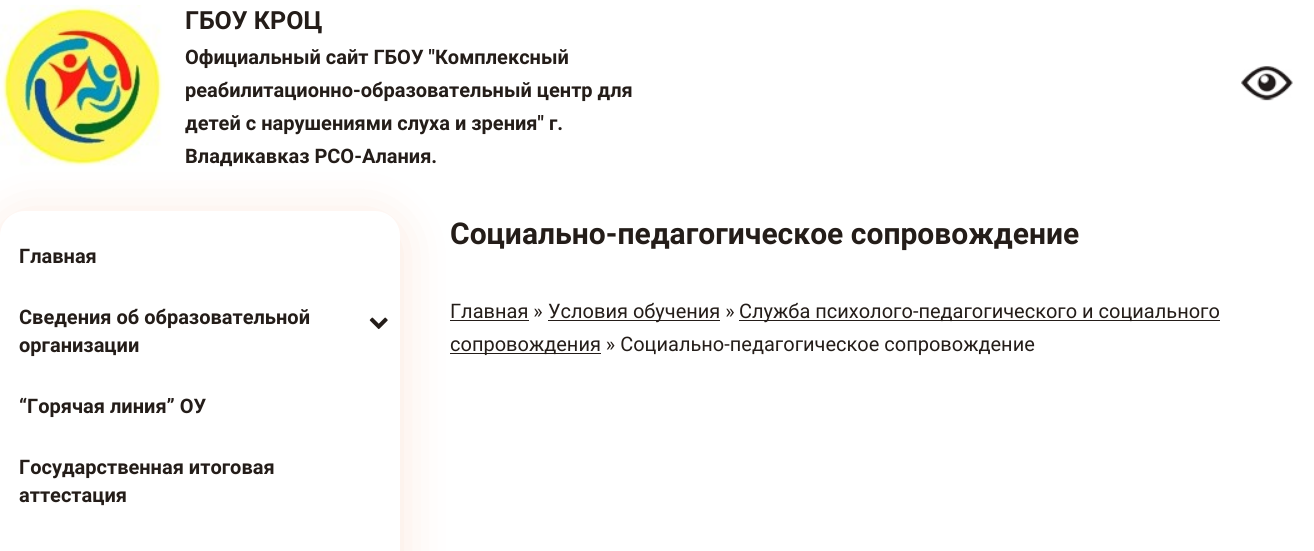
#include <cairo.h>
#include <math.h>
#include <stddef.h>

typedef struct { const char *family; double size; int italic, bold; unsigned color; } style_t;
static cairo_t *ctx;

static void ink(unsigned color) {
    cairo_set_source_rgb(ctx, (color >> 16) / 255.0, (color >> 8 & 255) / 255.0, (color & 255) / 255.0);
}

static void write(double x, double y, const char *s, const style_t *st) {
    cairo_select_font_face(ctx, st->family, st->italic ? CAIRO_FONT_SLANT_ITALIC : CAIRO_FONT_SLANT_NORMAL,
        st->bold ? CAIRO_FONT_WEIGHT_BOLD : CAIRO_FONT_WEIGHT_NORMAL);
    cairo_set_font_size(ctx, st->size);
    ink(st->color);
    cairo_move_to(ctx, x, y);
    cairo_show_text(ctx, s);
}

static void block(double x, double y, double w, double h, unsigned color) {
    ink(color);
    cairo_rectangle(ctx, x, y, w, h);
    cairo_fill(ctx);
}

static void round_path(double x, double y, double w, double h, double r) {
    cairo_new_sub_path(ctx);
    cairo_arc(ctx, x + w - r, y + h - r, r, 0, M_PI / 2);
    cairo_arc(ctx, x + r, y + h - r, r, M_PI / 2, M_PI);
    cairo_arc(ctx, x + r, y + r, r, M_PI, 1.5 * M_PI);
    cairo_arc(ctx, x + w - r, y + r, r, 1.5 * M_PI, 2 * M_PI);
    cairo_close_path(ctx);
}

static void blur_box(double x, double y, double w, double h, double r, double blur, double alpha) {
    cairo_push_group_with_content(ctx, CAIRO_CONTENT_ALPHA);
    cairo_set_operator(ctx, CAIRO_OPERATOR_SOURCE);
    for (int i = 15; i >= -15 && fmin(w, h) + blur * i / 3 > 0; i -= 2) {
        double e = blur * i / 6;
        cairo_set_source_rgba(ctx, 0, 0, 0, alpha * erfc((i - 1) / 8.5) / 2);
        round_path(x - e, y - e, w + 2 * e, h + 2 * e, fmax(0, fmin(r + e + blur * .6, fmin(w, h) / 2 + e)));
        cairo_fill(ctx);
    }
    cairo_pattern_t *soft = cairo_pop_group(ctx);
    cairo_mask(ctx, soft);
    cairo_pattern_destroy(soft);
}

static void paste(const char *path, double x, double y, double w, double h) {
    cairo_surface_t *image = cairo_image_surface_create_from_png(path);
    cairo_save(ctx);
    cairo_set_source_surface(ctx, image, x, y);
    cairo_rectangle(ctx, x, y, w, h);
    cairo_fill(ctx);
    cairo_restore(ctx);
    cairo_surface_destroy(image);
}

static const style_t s1 = {"Roboto", 25, 0, 1, 0x241d19};
static const style_t s2 = {"Roboto", 20, 0, 1, 0x241d19};
static const style_t s3 = {"Roboto", 30, 0, 1, 0x241d19};
static const style_t s4 = {"Roboto", 20, 0, 0, 0x241d19};

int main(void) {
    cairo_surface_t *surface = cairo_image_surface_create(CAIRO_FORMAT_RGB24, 1314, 551);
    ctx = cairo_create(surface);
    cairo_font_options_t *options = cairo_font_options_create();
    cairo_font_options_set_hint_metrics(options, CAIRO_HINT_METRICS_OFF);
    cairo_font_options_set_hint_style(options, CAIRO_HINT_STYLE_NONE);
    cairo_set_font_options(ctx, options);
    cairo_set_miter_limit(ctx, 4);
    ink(0xffffff);
    cairo_paint(ctx);
    block(450, 320, 79, 1, 0x241d19);
    block(450, 353, 151, 1, 0x241d19);
    ink(0xf4ae86);
    blur_box(0, 218, 400, 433, 25, 25, 0.3);
    paste("pic1.png", 0, 5, 165, 162);
    write(185, 29, "ГБОУ КРОЦ", &s1);
    write(185, 64, "Официальный сайт ГБОУ \"Комплексный", &s2);
    write(185, 97, "реабилитационно-образовательный центр для", &s2);
    write(185, 130, "детей с нарушениями слуха и зрения\" г.", &s2);
    write(185, 163, "Владикавказ РСО-Алания.", &s2);
    paste("pic2.png", 1241, 66, 52, 35);
    ink(0xffffff);
    round_path(0, 211, 400, 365, 25);
    cairo_fill(ctx);
    write(19, 263, "Главная", &s2);
    write(19, 324, "Сведения об образовательной", &s2);
    write(19, 352, "организации", &s2);
    paste("pic3.png", 369, 317, 19, 13);
    write(19, 413, "“Горячая линия” ОУ", &s2);
    write(19, 474, "Государственная итоговая", &s2);
    write(19, 502, "аттестация", &s2);
    write(450, 244, "Социально-педагогическое сопровождение", &s3);
    write(450, 318, "Главная »", &s4);
    block(548, 320, 172, 1, 0x241d19);
    write(548, 318, "Условия обучения »", &s4);
    block(739, 320, 481, 1, 0x241d19);
    write(739, 318, "Служба психолого-педагогического и социального", &s4);
    write(450, 351, "сопровождения » Социально-педагогическое сопровождение", &s4);
    cairo_surface_write_to_png(surface, "screenshot.png");
    cairo_font_options_destroy(options);
    cairo_destroy(ctx);
    cairo_surface_destroy(surface);
    return 0;
}
